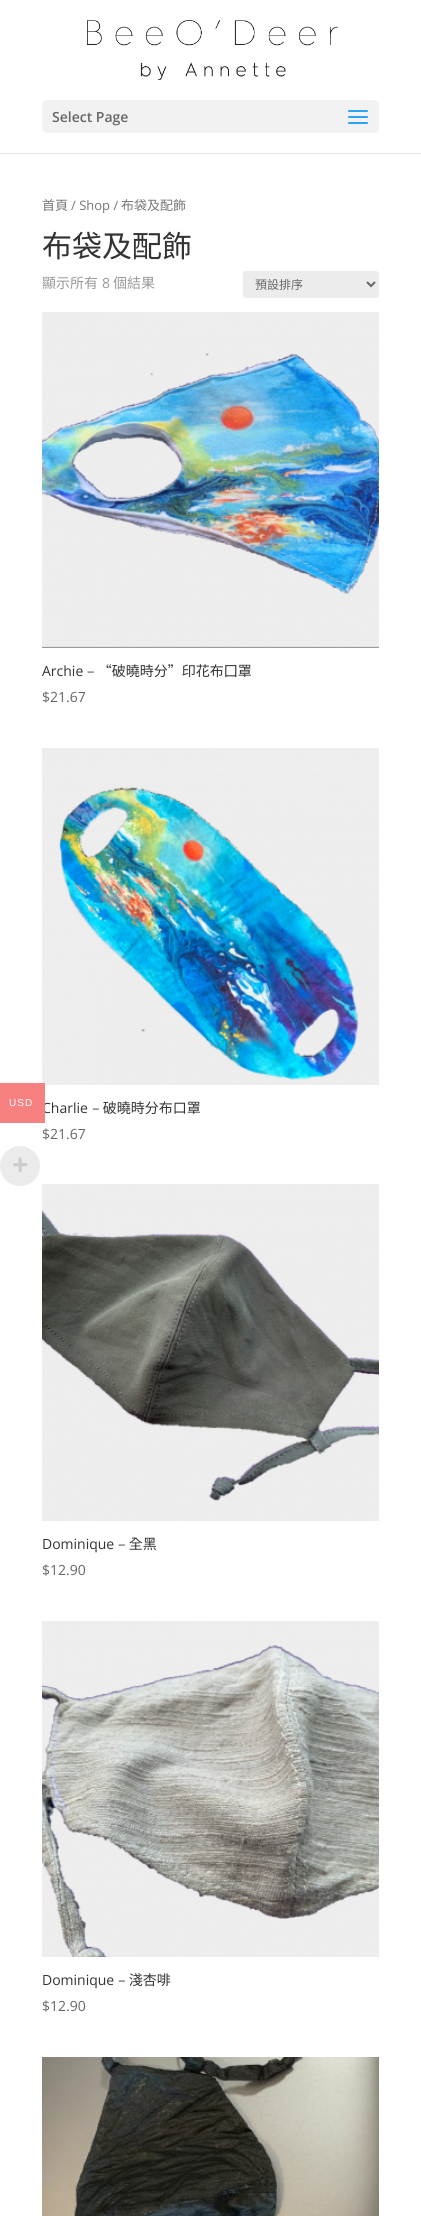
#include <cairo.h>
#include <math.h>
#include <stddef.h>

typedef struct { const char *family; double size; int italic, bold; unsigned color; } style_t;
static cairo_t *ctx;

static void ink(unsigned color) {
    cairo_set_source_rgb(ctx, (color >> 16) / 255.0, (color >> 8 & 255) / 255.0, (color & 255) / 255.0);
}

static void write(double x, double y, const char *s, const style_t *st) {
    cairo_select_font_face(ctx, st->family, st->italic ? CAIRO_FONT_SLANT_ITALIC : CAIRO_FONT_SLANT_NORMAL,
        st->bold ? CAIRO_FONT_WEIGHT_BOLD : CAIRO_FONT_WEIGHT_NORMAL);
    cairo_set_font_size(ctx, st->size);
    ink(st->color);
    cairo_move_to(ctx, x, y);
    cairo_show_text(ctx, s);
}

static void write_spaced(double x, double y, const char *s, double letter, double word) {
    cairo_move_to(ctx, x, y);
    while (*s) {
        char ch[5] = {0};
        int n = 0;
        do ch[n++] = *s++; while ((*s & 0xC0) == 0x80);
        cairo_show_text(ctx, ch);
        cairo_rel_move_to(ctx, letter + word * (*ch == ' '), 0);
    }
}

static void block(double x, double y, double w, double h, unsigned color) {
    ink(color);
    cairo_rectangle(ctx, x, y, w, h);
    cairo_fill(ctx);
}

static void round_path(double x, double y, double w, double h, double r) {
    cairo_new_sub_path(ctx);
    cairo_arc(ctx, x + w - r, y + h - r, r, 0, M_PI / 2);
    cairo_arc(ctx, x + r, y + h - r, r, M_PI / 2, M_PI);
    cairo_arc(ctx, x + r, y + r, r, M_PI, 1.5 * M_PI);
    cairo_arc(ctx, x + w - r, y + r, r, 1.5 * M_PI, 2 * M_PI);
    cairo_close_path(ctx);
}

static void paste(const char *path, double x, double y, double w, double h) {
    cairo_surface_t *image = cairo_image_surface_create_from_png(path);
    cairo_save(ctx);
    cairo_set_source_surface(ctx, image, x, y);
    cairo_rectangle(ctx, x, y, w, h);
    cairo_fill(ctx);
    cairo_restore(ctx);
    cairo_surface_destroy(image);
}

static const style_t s1 = {"Open Sans", 14, 0, 0, 0x333333};
static const style_t s2 = {"Liberation Sans", 28, 0, 1, 0xcccccc};
static const style_t s3 = {"Open Sans SemiBold", 14, 0, 0, 0x666666};
static const style_t s4 = {"Noto Sans CJK HK", 13, 0, 0, 0x767676};
static const style_t s5 = {"Open Sans", 13, 0, 0, 0x767676};
static const style_t s6 = {"Noto Sans CJK HK", 30, 0, 0, 0x333333};
static const style_t s7 = {"Noto Sans CJK HK", 14, 0, 0, 0x999999};
static const style_t s8 = {"Open Sans", 14, 0, 0, 0x999999};
static const style_t s9 = {"Noto Sans CJK HK", 12, 0, 0, 0x666666};
static const style_t s10 = {"Noto Sans CJK HK", 14, 0, 0, 0x333333};
static const style_t s11 = {"Open Sans", 14, 0, 0, 0x666666};

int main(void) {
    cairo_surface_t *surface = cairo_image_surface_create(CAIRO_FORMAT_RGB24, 421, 2216);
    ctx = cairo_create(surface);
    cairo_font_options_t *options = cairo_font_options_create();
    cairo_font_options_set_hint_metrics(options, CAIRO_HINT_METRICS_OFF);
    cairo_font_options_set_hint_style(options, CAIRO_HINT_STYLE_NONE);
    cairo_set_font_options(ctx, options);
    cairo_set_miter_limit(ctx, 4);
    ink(0xffffff);
    cairo_paint(ctx);
    paste("pic4.png", 42, 748, 337, 337);
    write(42, 1113, "Charlie", &s1);
    block(0, 1083, 45, 40, 0xf78080);
    cairo_select_font_face(ctx, "Liberation Sans", CAIRO_FONT_SLANT_NORMAL, CAIRO_FONT_WEIGHT_NORMAL);
    cairo_set_font_size(ctx, 10);
    ink(0xffffff);
    write_spaced(9, 1106, "USD", 1, 0);
    ink(0xebebeb);
    cairo_new_path(ctx);
    cairo_arc(ctx, 20, 1166, 20, 0, 2 * M_PI);
    cairo_fill(ctx);
    write(12, 1174, "+", &s2);
    block(0, 153, 421, 1, 0xe6e6e6);
    paste("pic1.png", 87, 20, 251, 60);
    ink(0xf2f2f2);
    round_path(42, 100, 337, 33, 5);
    cairo_fill(ctx);
    write(52, 122, "Select Page", &s3);
    paste("pic2.png", 348, 110, 20, 14);
    write(42, 210, "首頁", &s4);
    write(71, 210, "/ Shop /", &s5);
    write(121, 210, "布袋及配飾", &s4);
    write(42, 257, "布袋及配飾", &s6);
    write(42, 288, "顯示所有", &s7);
    write(102, 288, "8", &s8);
    write(113, 288, "個結果", &s7);
    ink(0xececec);
    round_path(243, 271, 136, 27, 3);
    cairo_fill(ctx);
    cairo_new_path(ctx);
    cairo_move_to(ctx, 367, 282);
    cairo_line_to(ctx, 371, 286);
    cairo_line_to(ctx, 375, 282);
    ink(0x666666);
    cairo_stroke(ctx);
    write(255, 289, "預設排序", &s9);
    paste("pic3.png", 42, 312, 337, 336);
    write(42, 676, "Archie", &s1);
    write(87, 676, "– “破曉時分”印花布囗罩", &s10);
    write(42, 702, "$21.67", &s11);
    write(92, 1113, "– 破曉時分布口罩", &s10);
    write(42, 1139, "$21.67", &s11);
    paste("pic5.png", 42, 1184, 337, 337);
    write(42, 1549, "Dominique", &s1);
    write(118, 1549, "– 全黑", &s10);
    write(42, 1575, "$12.90", &s11);
    paste("pic6.png", 42, 1621, 337, 336);
    write(42, 1985, "Dominique", &s1);
    write(118, 1985, "– 淺杏啡", &s10);
    write(42, 2011, "$12.90", &s11);
    paste("pic7.png", 42, 2057, 337, 159);
    cairo_surface_write_to_png(surface, "screenshot.png");
    cairo_font_options_destroy(options);
    cairo_destroy(ctx);
    cairo_surface_destroy(surface);
    return 0;
}
